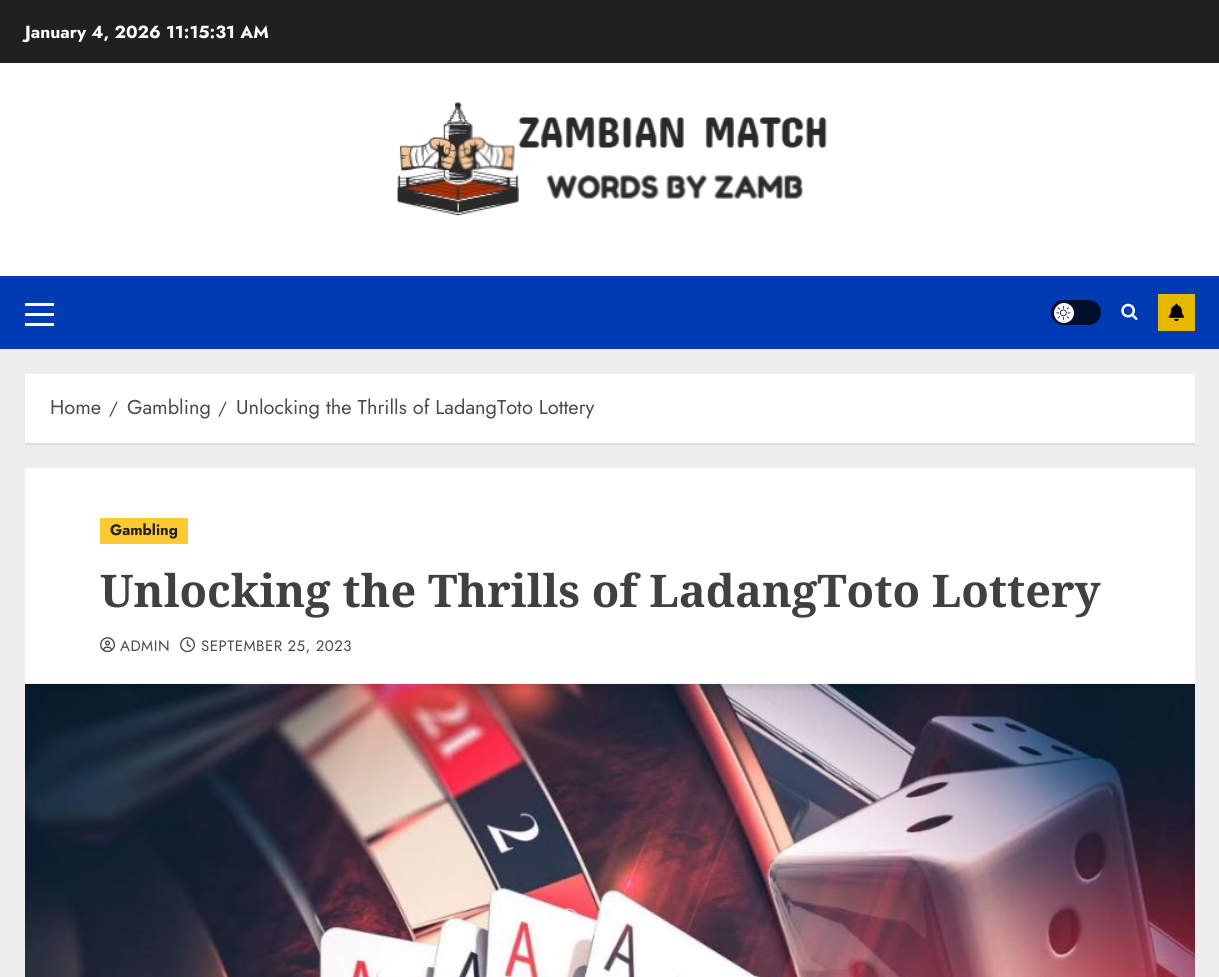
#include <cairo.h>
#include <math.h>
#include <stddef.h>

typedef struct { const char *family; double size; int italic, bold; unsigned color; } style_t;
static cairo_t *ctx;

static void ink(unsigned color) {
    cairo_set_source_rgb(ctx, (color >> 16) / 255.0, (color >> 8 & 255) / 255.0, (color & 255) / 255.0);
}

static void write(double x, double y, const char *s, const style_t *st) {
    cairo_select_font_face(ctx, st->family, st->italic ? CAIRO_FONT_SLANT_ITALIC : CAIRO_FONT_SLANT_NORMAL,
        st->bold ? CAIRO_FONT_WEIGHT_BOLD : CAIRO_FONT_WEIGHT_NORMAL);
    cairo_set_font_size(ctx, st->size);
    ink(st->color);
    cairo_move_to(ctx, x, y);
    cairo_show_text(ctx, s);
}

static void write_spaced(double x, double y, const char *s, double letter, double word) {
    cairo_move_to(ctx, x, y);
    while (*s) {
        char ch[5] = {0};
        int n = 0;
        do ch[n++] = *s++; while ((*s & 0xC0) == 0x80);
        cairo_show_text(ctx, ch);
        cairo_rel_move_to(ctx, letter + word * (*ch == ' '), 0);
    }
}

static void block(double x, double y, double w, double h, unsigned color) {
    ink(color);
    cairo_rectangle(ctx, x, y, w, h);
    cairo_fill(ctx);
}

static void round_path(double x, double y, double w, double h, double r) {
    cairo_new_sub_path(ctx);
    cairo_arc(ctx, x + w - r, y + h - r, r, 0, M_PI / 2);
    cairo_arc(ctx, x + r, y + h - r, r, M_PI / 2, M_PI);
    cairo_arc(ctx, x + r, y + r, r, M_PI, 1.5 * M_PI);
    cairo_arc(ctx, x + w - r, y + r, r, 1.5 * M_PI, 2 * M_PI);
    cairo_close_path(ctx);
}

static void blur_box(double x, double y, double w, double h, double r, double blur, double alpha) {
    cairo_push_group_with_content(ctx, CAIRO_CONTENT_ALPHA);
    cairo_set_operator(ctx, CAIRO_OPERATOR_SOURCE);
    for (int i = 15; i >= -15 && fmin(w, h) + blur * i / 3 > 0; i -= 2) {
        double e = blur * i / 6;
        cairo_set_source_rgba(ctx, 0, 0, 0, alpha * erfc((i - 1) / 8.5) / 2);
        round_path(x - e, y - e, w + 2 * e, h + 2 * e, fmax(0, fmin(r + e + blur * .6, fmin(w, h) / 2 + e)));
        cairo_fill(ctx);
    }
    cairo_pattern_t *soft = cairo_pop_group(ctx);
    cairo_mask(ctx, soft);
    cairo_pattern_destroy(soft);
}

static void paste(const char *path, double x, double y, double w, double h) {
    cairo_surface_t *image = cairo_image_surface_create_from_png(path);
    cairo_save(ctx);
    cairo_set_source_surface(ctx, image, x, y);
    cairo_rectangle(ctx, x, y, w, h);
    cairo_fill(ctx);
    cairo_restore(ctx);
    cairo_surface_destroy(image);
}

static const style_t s1 = {"Jost", 17.5, 0, 1, 0xffffff};
static const style_t s2 = {"Jost", 20, 0, 0, 0x4a4a4a};
static const style_t s3 = {"Jost", 17.5, 0, 0, 0x4a4a4a};
static const style_t s4 = {"Jost", 15, 0, 1, 0x202020};
static const style_t s5 = {"Noto Serif", 45, 0, 1, 0x404040};

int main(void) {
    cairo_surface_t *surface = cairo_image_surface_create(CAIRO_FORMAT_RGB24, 1219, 977);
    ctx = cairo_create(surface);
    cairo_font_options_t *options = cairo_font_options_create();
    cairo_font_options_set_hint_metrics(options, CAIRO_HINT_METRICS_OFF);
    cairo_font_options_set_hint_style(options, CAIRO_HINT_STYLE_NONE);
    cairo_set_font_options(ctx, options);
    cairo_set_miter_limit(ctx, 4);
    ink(0xeeeeee);
    cairo_paint(ctx);
    block(0, 0, 1219, 63, 0x202020);
    write(25, 38, "January 4, 2026 11:15:31 AM", &s1);
    block(0, 63, 1219, 213, 0xffffff);
    paste("pic1.png", 397, 102, 430, 114);
    block(0, 276, 1219, 73, 0x003bb3);
    block(25, 313, 29, 3, 0xffffff);
    block(25, 303, 29, 3, 0xffffff);
    block(25, 323, 29, 3, 0xffffff);
    ink(0x000f2d);
    round_path(1051, 300, 50, 25, 12.5);
    cairo_fill(ctx);
    ink(0xffffff);
    cairo_arc(ctx, 1064, 313, 10, 0, 2 * M_PI);
    cairo_fill(ctx);
    paste("pic2.png", 1056, 305, 15, 15);
    paste("pic3.png", 1121, 303, 17, 17);
    block(1158, 294, 37, 37, 0xe6b800);
    paste("pic4.png", 1168, 303, 16, 19);
    ink(0x000000);
    blur_box(25, 376, 1170, 69, 0, 1, 0.08);
    block(25, 374, 1170, 69, 0xffffff);
    write(50, 414, "Home", &s2);
    write(109, 414, "/", &s3);
    write(127, 414, "Gambling", &s2);
    write(218, 414, "/", &s3);
    write(236, 414, "Unlocking the Thrills of LadangToto Lottery", &s2);
    block(25, 468, 1170, 216, 0xffffff);
    block(100, 518, 88, 26, 0xffc934);
    write(110, 535, "Gambling", &s4);
    write(100, 607, "Unlocking the Thrills of LadangToto Lottery", &s5);
    paste("pic5.png", 100, 637, 15, 16);
    cairo_select_font_face(ctx, "Jost", CAIRO_FONT_SLANT_NORMAL, CAIRO_FONT_WEIGHT_NORMAL);
    cairo_set_font_size(ctx, 15);
    ink(0x4a4a4a);
    write_spaced(120, 651, "ADMIN", 0.5, 0);
    paste("pic6.png", 180, 637, 15, 16);
    write_spaced(201, 651, "SEPTEMBER 25, 2023", 0.5, 0);
    paste("pic7.png", 25, 683, 1170, 294);
    cairo_surface_write_to_png(surface, "screenshot.png");
    cairo_font_options_destroy(options);
    cairo_destroy(ctx);
    cairo_surface_destroy(surface);
    return 0;
}
